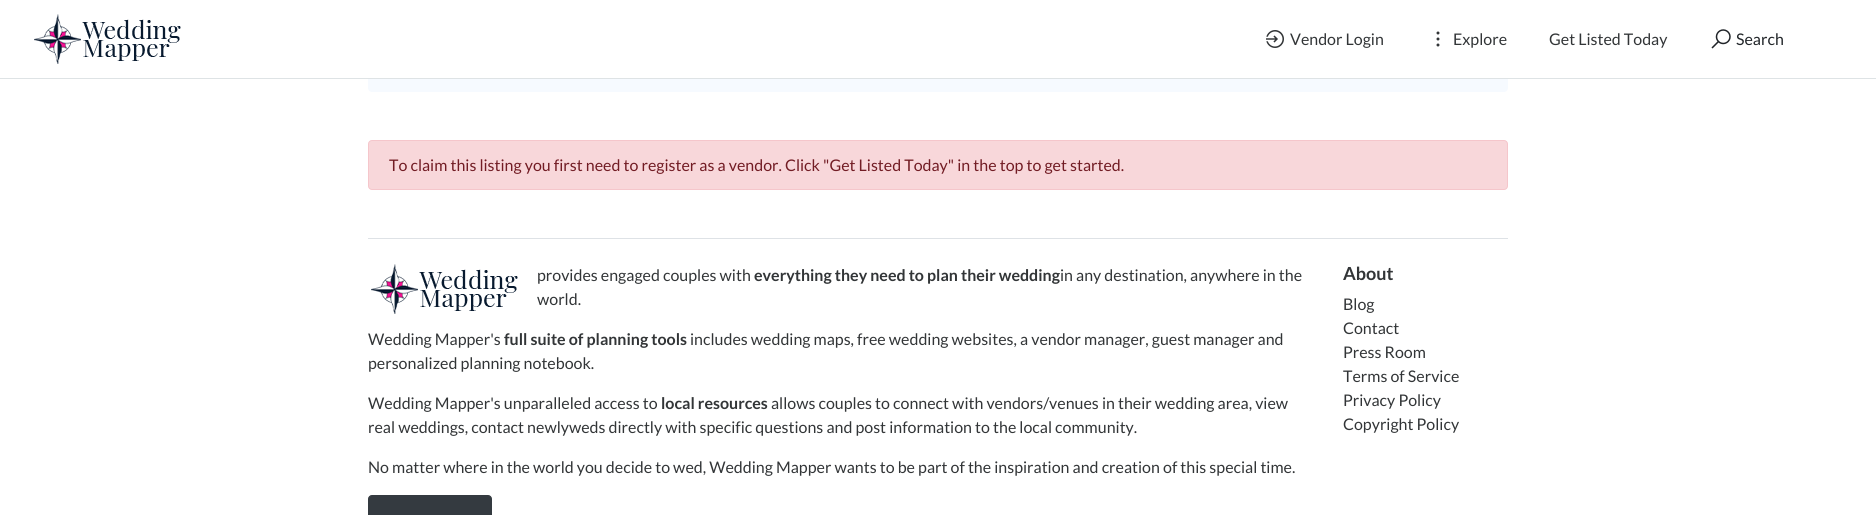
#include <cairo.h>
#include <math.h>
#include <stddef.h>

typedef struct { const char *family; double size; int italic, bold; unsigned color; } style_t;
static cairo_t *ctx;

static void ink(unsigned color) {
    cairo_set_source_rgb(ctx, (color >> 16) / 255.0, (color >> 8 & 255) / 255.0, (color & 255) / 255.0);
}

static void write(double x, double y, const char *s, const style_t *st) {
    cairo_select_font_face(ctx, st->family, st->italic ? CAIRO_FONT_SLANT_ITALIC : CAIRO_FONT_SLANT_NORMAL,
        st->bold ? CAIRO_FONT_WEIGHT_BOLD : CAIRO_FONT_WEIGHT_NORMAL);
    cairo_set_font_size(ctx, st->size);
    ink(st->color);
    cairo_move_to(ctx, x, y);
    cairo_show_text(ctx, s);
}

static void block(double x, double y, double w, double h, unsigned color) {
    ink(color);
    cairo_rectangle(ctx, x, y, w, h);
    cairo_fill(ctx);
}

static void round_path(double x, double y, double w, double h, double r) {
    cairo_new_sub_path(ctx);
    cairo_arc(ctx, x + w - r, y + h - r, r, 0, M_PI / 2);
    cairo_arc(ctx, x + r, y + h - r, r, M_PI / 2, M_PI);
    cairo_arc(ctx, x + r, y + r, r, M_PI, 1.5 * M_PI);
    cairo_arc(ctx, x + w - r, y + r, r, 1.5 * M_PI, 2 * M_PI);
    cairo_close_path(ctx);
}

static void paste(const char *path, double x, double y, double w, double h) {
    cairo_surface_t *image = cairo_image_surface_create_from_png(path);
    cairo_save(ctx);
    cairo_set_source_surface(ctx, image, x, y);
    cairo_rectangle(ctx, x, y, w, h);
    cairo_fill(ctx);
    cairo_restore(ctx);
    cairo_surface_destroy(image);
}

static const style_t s1 = {"Lato", 16, 0, 0, 0x323537};
static const style_t s2 = {"Lato", 16, 0, 0, 0x212529};
static const style_t s3 = {"Lato", 16, 0, 0, 0x721c24};
static const style_t s4 = {"Lato", 16, 0, 1, 0x323537};
static const style_t s5 = {"Lato", 18, 0, 1, 0x323537};

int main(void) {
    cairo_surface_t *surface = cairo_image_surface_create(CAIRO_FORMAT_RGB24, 1876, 515);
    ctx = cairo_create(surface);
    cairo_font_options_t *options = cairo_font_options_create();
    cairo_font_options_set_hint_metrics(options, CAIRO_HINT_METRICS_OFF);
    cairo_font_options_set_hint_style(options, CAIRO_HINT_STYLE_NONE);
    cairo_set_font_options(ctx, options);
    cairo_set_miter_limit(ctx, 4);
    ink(0xffffff);
    cairo_paint(ctx);
    ink(0xf6faff);
    round_path(368, -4, 1140, 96, 4);
    cairo_fill(ctx);
    block(368, 0, 1140, 78, 0xffffff);
    block(0, 78, 1876, 1, 0xdee3e5);
    paste("pic1.png", 34, 14, 147, 50);
    paste("pic2.png", 1266, 30, 18, 18);
    write(1290, 45, "Vendor Login", &s1);
    paste("pic3.png", 1436, 31, 4, 16);
    write(1453, 45, "Explore", &s1);
    write(1549, 45, "Get Listed Today", &s1);
    paste("pic4.png", 1711, 29, 20, 20);
    write(1736, 45, "Search", &s2);
    ink(0xf8d7da);
    round_path(368.5, 140.5, 1139, 49, 3.5);
    cairo_fill_preserve(ctx);
    ink(0xf5c6cb);
    cairo_set_line_width(ctx, 1);
    cairo_stroke(ctx);
    write(389, 171, "To claim this listing you first need to register as a vendor. Click \"Get Listed Today\" in the top to get started.", &s3);
    block(368, 238, 1140, 1, 0xdee2e6);
    paste("pic1.png", 371, 264, 147, 50);
    write(537, 281, "provides engaged couples with", &s1);
    write(754, 281, "everything they need to plan their wedding", &s4);
    write(1060, 281, "in any destination, anywhere in the", &s1);
    write(537, 305, "world.", &s1);
    write(368, 345, "Wedding Mapper's", &s1);
    write(504, 345, "full suite of planning tools", &s4);
    write(690, 345, "includes wedding maps, free wedding websites, a vendor manager, guest manager and", &s1);
    write(368, 369, "personalized planning notebook.", &s1);
    write(368, 409, "Wedding Mapper's unparalleled access to", &s1);
    write(661, 409, "local resources", &s4);
    write(771, 409, "allows couples to connect with vendors/venues in their wedding area, view", &s1);
    write(368, 433, "real weddings, contact newlyweds directly with specific questions and post information to the local community.", &s1);
    write(368, 473, "No matter where in the world you decide to wed, Wedding Mapper wants to be part of the inspiration and creation of this special time.", &s1);
    ink(0x343a40);
    round_path(368.5, 495.5, 123, 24, 3.5);
    cairo_fill_preserve(ctx);
    cairo_stroke(ctx);
    write(1343, 280, "About", &s5);
    write(1343, 310, "Blog", &s1);
    write(1343, 334, "Contact", &s1);
    write(1343, 358, "Press Room", &s1);
    write(1343, 382, "Terms of Service", &s1);
    write(1343, 406, "Privacy Policy", &s1);
    write(1343, 430, "Copyright Policy", &s1);
    cairo_surface_write_to_png(surface, "screenshot.png");
    cairo_font_options_destroy(options);
    cairo_destroy(ctx);
    cairo_surface_destroy(surface);
    return 0;
}
